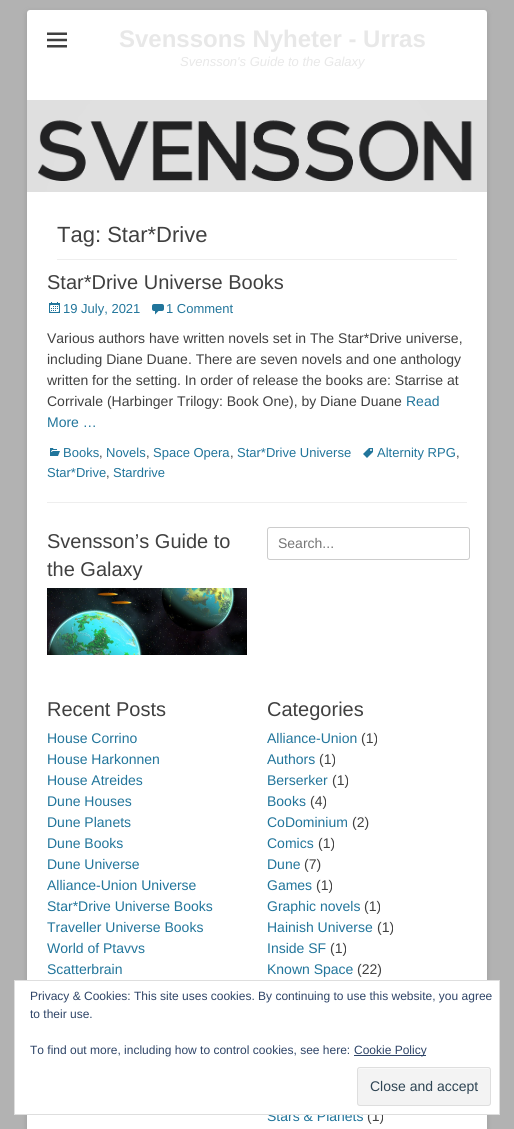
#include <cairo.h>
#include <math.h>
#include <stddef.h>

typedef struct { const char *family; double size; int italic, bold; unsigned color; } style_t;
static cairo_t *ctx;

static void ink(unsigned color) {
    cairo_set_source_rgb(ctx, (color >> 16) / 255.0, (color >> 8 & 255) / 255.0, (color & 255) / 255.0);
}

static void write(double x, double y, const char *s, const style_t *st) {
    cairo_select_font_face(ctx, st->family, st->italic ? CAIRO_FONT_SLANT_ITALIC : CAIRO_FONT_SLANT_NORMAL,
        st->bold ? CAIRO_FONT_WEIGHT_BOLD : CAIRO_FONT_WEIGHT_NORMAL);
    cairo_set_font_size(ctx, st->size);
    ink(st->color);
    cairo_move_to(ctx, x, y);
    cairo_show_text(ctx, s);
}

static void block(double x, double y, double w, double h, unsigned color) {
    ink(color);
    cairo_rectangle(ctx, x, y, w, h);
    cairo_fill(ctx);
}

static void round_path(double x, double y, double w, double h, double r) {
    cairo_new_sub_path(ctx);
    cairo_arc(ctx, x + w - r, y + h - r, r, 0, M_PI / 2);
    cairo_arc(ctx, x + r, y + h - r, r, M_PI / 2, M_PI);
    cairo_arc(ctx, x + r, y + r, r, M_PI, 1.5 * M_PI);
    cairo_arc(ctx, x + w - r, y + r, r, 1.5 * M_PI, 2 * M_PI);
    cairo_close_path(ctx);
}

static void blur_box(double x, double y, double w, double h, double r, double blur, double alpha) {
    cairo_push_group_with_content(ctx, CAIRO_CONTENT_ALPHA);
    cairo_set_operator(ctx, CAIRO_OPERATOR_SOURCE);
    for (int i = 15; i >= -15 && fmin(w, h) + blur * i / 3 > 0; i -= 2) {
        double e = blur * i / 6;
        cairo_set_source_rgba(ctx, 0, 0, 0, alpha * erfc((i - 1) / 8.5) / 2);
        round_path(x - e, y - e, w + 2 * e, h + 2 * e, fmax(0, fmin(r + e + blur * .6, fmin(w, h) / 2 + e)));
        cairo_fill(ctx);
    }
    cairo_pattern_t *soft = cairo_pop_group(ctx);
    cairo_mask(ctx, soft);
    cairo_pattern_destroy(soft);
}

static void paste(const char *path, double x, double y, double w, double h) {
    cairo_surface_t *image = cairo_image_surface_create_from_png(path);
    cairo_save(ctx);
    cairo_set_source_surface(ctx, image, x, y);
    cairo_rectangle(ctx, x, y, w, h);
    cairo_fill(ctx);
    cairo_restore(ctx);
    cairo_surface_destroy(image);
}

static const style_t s1 = {"Liberation Sans", 24, 0, 1, 0xe8e8e8};
static const style_t s2 = {"Liberation Sans", 13, 1, 0, 0xe8e8e8};
static const style_t s3 = {"Liberation Sans", 22, 0, 0, 0x404040};
static const style_t s4 = {"Liberation Sans", 20, 0, 0, 0x404040};
static const style_t s5 = {"Liberation Sans", 13, 0, 0, 0x21759b};
static const style_t s6 = {"Liberation Sans", 14, 0, 0, 0x404040};
static const style_t s7 = {"Liberation Sans", 14, 0, 0, 0x21759b};
static const style_t s8 = {"Liberation Sans", 13, 0, 0, 0x404040};
static const style_t s9 = {"Liberation Sans", 14, 0, 0, 0x757575};
static const style_t s10 = {"Liberation Sans", 12, 0, 0, 0x2e4467};
static const style_t s11 = {"Liberation Sans", 14, 0, 0, 0x2e4453};

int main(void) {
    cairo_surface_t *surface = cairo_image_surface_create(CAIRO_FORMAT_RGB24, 514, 1129);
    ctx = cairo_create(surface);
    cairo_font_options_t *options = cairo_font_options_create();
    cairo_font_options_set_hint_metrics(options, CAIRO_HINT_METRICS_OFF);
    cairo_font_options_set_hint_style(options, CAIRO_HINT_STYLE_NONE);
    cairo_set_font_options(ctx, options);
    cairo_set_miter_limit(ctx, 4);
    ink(0xb2b2b2);
    cairo_paint(ctx);
    ink(0x646464);
    blur_box(27, 12, 460, 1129, 3, 3, 0.3);
    ink(0xffffff);
    round_path(27, 10, 460, 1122, 3);
    cairo_fill(ctx);
    paste("pic1.png", 47, 32, 20, 16);
    write(119, 47, "Svenssons Nyheter - Urras", &s1);
    write(180, 66, "Svensson's Guide to the Galaxy", &s2);
    paste("pic2.png", 27, 100, 460, 92);
    block(57, 259, 400, 1, 0xeeeeee);
    write(57, 242, "Tag: Star*Drive", &s3);
    block(47, 502, 420, 1, 0xeeeeee);
    write(47, 289, "Star*Drive Universe Books", &s4);
    paste("pic3.png", 49, 302, 11, 11);
    write(63, 313, "19 July, 2021", &s5);
    paste("pic4.png", 152, 304, 12, 11);
    write(166, 313, "1 Comment", &s5);
    write(47, 343, "Various authors have written novels set in The Star*Drive universe,", &s6);
    write(47, 364, "including Diane Duane. There are seven novels and one anthology", &s6);
    write(47, 385, "written for the setting. In order of release the books are: Starrise at", &s6);
    write(47, 406, "Corrivale (Harbinger Trilogy: Book One), by Diane Duane", &s6);
    write(406, 406, "Read", &s7);
    write(47, 427, "More …", &s7);
    paste("pic5.png", 363, 448, 10, 10);
    write(377, 457, "Alternity RPG", &s5);
    write(456, 457, ",", &s8);
    write(47, 477, "Star*Drive", &s5);
    write(106, 477, ",", &s8);
    write(113, 477, "Stardrive", &s5);
    paste("pic6.png", 50, 448, 10, 8);
    write(63, 457, "Books", &s5);
    write(99, 457, ",", &s8);
    write(106, 457, "Novels", &s5);
    write(146, 457, ",", &s8);
    write(153, 457, "Space Opera", &s5);
    write(230, 457, ",", &s8);
    write(237, 457, "Star*Drive Universe", &s5);
    write(47, 548, "Svensson’s Guide to", &s4);
    write(47, 576, "the Galaxy", &s4);
    paste("pic7.png", 47, 588, 200, 67);
    round_path(267.5, 527.5, 202, 32, 2.5);
    ink(0xcccccc);
    cairo_set_line_width(ctx, 1);
    cairo_stroke(ctx);
    write(278, 548, "Search...", &s9);
    write(47, 716, "Recent Posts", &s4);
    write(47, 743, "House Corrino", &s7);
    write(47, 764, "House Harkonnen", &s7);
    write(47, 785, "House Atreides", &s7);
    write(47, 806, "Dune Houses", &s7);
    write(47, 827, "Dune Planets", &s7);
    write(47, 848, "Dune Books", &s7);
    write(47, 869, "Dune Universe", &s7);
    write(47, 890, "Alliance-Union Universe", &s7);
    write(47, 911, "Star*Drive Universe Books", &s7);
    write(47, 932, "Traveller Universe Books", &s7);
    write(47, 953, "World of Ptavvs", &s7);
    write(47, 974, "Scatterbrain", &s7);
    write(267, 716, "Categories", &s4);
    write(267, 743, "Alliance-Union", &s7);
    write(361, 743, "(1)", &s6);
    write(267, 764, "Authors", &s7);
    write(319, 764, "(1)", &s6);
    write(267, 785, "Berserker", &s7);
    write(332, 785, "(1)", &s6);
    write(267, 806, "Books", &s7);
    write(310, 806, "(4)", &s6);
    write(267, 827, "CoDominium", &s7);
    write(352, 827, "(2)", &s6);
    write(267, 848, "Comics", &s7);
    write(318, 848, "(1)", &s6);
    write(267, 869, "Dune", &s7);
    write(304, 869, "(7)", &s6);
    write(267, 890, "Games", &s7);
    write(316, 890, "(1)", &s6);
    write(267, 911, "Graphic novels", &s7);
    write(364, 911, "(1)", &s6);
    write(267, 932, "Hainish Universe", &s7);
    write(377, 932, "(1)", &s6);
    write(267, 953, "Inside SF", &s7);
    write(330, 953, "(1)", &s6);
    write(267, 974, "Known Space", &s7);
    write(357, 974, "(22)", &s6);
    write(267, 1121, "Stars & Planets", &s7);
    write(367, 1121, "(1)", &s6);
    ink(0xffffff);
    cairo_rectangle(ctx, 14.5, 980.5, 485, 134);
    cairo_fill_preserve(ctx);
    ink(0xdedede);
    cairo_stroke(ctx);
    write(30, 1000, "Privacy & Cookies: This site uses cookies. By continuing to use this website, you agree", &s10);
    write(30, 1018, "to their use.", &s10);
    write(30, 1054, "To find out more, including how to control cookies, see here:", &s10);
    block(354, 1055, 72, 1, 0x2e4467);
    write(354, 1054, "Cookie Policy", &s10);
    ink(0xf3f3f3);
    round_path(357, 1067, 134, 39, 3);
    cairo_fill(ctx);
    ink(0xf9f9f9);
    cairo_new_path(ctx);
    cairo_move_to(ctx, 360, 1069);
    cairo_line_to(ctx, 488, 1069);
    cairo_curve_to(ctx, 489, 1069, 490, 1070, 490, 1071);
    cairo_curve_to(ctx, 490, 1070, 490, 1068, 488, 1068);
    cairo_line_to(ctx, 360, 1068);
    cairo_curve_to(ctx, 358, 1068, 358, 1070, 358, 1071);
    cairo_curve_to(ctx, 358, 1070, 359, 1069, 360, 1069);
    cairo_close_path(ctx);
    cairo_fill(ctx);
    round_path(357.5, 1067.5, 133, 38, 2.5);
    ink(0xdedede);
    cairo_stroke(ctx);
    write(370, 1091, "Close and accept", &s11);
    cairo_surface_write_to_png(surface, "screenshot.png");
    cairo_font_options_destroy(options);
    cairo_destroy(ctx);
    cairo_surface_destroy(surface);
    return 0;
}
